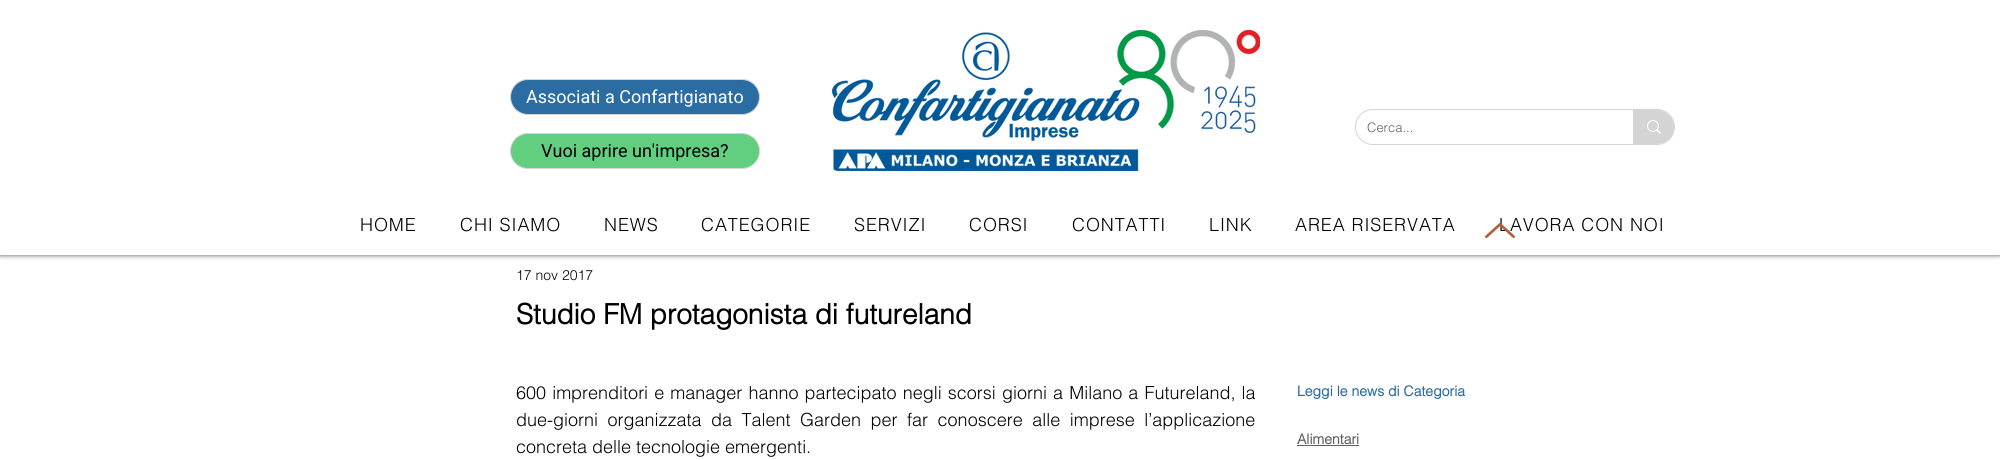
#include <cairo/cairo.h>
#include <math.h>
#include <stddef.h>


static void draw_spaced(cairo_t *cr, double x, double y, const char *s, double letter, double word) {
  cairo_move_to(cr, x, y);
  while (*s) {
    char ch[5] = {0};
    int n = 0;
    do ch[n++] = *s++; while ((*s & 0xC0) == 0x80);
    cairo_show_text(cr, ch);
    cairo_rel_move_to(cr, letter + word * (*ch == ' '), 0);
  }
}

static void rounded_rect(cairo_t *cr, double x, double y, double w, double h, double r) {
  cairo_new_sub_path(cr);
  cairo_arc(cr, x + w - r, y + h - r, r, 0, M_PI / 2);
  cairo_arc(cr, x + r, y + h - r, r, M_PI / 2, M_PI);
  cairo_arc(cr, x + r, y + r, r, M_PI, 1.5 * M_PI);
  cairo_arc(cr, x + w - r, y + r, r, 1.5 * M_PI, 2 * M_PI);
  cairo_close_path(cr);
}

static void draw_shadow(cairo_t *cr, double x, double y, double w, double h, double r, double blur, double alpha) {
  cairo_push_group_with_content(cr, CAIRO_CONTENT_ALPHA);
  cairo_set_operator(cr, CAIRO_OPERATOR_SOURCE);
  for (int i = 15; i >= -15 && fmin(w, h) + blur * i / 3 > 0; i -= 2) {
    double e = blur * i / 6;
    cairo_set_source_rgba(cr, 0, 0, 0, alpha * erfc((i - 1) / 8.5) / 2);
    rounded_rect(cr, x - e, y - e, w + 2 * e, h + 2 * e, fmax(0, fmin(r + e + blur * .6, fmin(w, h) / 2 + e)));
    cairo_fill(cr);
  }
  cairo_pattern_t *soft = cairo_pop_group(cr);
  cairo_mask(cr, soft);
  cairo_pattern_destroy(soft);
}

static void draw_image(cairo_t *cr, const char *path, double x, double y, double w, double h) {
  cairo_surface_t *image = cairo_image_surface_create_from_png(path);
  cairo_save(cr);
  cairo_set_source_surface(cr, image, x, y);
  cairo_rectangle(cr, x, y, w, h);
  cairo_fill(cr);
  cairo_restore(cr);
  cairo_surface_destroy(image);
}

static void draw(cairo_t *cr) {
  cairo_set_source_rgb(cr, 1, 1, 1);
  cairo_paint(cr);
  cairo_save(cr);
  cairo_rectangle(cr, 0, 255, 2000, 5);
  cairo_clip(cr);
  cairo_set_source_rgb(cr, 0, 0, 0);
  draw_shadow(cr, 0, 0, 2000, 255, 0, 2.5, 0.7);
  cairo_restore(cr);
  cairo_set_source_rgb(cr, 43 / 255.0, 108 / 255.0, 163 / 255.0);
  rounded_rect(cr, 510.5, 79.5, 249, 35, 17.5);
  cairo_fill_preserve(cr);
  cairo_set_source_rgb(cr, 212 / 255.0, 212 / 255.0, 212 / 255.0);
  cairo_set_line_width(cr, 1);
  cairo_stroke(cr);
  draw_image(cr, "images/1.png", 832, 30, 428, 141);
  rounded_rect(cr, 1355.5, 109.5, 319, 35, 17.5);
  cairo_stroke(cr);
  cairo_new_path(cr);
  cairo_move_to(cr, 1633, 110);
  cairo_line_to(cr, 1657, 110);
  cairo_curve_to(cr, 1666.5, 110, 1674, 117.5, 1674, 127);
  cairo_curve_to(cr, 1674, 136.5, 1666.5, 144, 1657, 144);
  cairo_line_to(cr, 1633, 144);
  cairo_close_path(cr);
  cairo_fill(cr);
  draw_image(cr, "images/2.png", 1647, 120, 14, 14);
  cairo_set_source_rgb(cr, 97 / 255.0, 207 / 255.0, 127 / 255.0);
  rounded_rect(cr, 510.5, 133.5, 249, 35, 17.5);
  cairo_fill_preserve(cr);
  cairo_set_source_rgb(cr, 212 / 255.0, 212 / 255.0, 212 / 255.0);
  cairo_stroke(cr);
  cairo_set_source_rgb(cr, 96 / 255.0, 96 / 255.0, 96 / 255.0);
  cairo_rectangle(cr, 1297, 445, 62, 1);
  cairo_fill(cr);
  cairo_select_font_face(cr, "Heebo", CAIRO_FONT_SLANT_NORMAL, CAIRO_FONT_WEIGHT_NORMAL);
  cairo_set_font_size(cr, 18);
  cairo_set_source_rgb(cr, 1, 1, 1);
  cairo_move_to(cr, 526, 103);
  cairo_show_text(cr, "Associati a Confartigianato");
  cairo_select_font_face(cr, "helvetica Light", CAIRO_FONT_SLANT_NORMAL, CAIRO_FONT_WEIGHT_NORMAL);
  cairo_set_font_size(cr, 13);
  cairo_set_source_rgb(cr, 96 / 255.0, 96 / 255.0, 96 / 255.0);
  cairo_move_to(cr, 1367, 132);
  cairo_show_text(cr, "Cerca...");
  cairo_select_font_face(cr, "Heebo", CAIRO_FONT_SLANT_NORMAL, CAIRO_FONT_WEIGHT_NORMAL);
  cairo_set_font_size(cr, 18);
  cairo_set_source_rgb(cr, 0, 0, 0);
  cairo_move_to(cr, 541, 157);
  cairo_show_text(cr, "Vuoi aprire un'impresa?");
  cairo_select_font_face(cr, "helvetica Light", CAIRO_FONT_SLANT_NORMAL, CAIRO_FONT_WEIGHT_NORMAL);
  draw_spaced(cr, 360, 231, "HOME", 0.9, 0);
  draw_spaced(cr, 460, 231, "CHI SIAMO", 0.9, 0);
  draw_spaced(cr, 604, 231, "NEWS", 0.9, 0);
  draw_spaced(cr, 701, 231, "CATEGORIE", 0.9, 0);
  draw_spaced(cr, 854, 231, "SERVIZI", 0.9, 0);
  draw_spaced(cr, 969, 231, "CORSI", 0.9, 0);
  draw_spaced(cr, 1072, 231, "CONTATTI", 0.9, 0);
  draw_spaced(cr, 1209, 231, "LINK", 0.9, 0);
  draw_spaced(cr, 1295, 231, "AREA RISERVATA", 0.9, 0);
  draw_spaced(cr, 1499, 231, "LAVORA CON NOI", 0.9, 0);
  draw_image(cr, "images/3.png", 1485, 223, 30, 15);
  cairo_set_font_size(cr, 14);
  cairo_move_to(cr, 516, 280);
  cairo_show_text(cr, "17 nov 2017");
  cairo_select_font_face(cr, "helvetica", CAIRO_FONT_SLANT_NORMAL, CAIRO_FONT_WEIGHT_BOLD);
  cairo_set_font_size(cr, 28);
  cairo_move_to(cr, 516, 324);
  cairo_show_text(cr, "Studio FM protagonista di futureland");
  cairo_select_font_face(cr, "helvetica Light", CAIRO_FONT_SLANT_NORMAL, CAIRO_FONT_WEIGHT_NORMAL);
  cairo_set_font_size(cr, 18);
  draw_spaced(cr, 516, 399, "600 imprenditori e manager hanno partecipato negli scorsi giorni a Milano a Futureland, la", 0, 1.1);
  draw_spaced(cr, 516, 426, "due-giorni organizzata da Talent Garden per far conoscere alle imprese l’applicazione", 0, 4.5);
  cairo_move_to(cr, 516, 453);
  cairo_show_text(cr, "concreta delle tecnologie emergenti.");
  cairo_select_font_face(cr, "helvetica", CAIRO_FONT_SLANT_NORMAL, CAIRO_FONT_WEIGHT_BOLD);
  cairo_set_font_size(cr, 14);
  cairo_set_source_rgb(cr, 43 / 255.0, 108 / 255.0, 163 / 255.0);
  cairo_move_to(cr, 1297, 396);
  cairo_show_text(cr, "Leggi le news di Categoria");
  cairo_set_source_rgb(cr, 96 / 255.0, 96 / 255.0, 96 / 255.0);
  cairo_move_to(cr, 1297, 444);
  cairo_show_text(cr, "Alimentari");
}

int main(void) {
  cairo_surface_t *surface = cairo_image_surface_create(CAIRO_FORMAT_RGB24, 2000, 460);
  cairo_t *cr = cairo_create(surface);
  cairo_font_options_t *options = cairo_font_options_create();
  cairo_font_options_set_hint_metrics(options, CAIRO_HINT_METRICS_OFF);
  cairo_font_options_set_hint_style(options, CAIRO_HINT_STYLE_NONE);
  cairo_set_font_options(cr, options);
  cairo_set_miter_limit(cr, 4);
  draw(cr);
  cairo_surface_write_to_png(surface, "out.png");
  cairo_font_options_destroy(options);
  cairo_destroy(cr);
  cairo_surface_destroy(surface);
  return 0;
}
